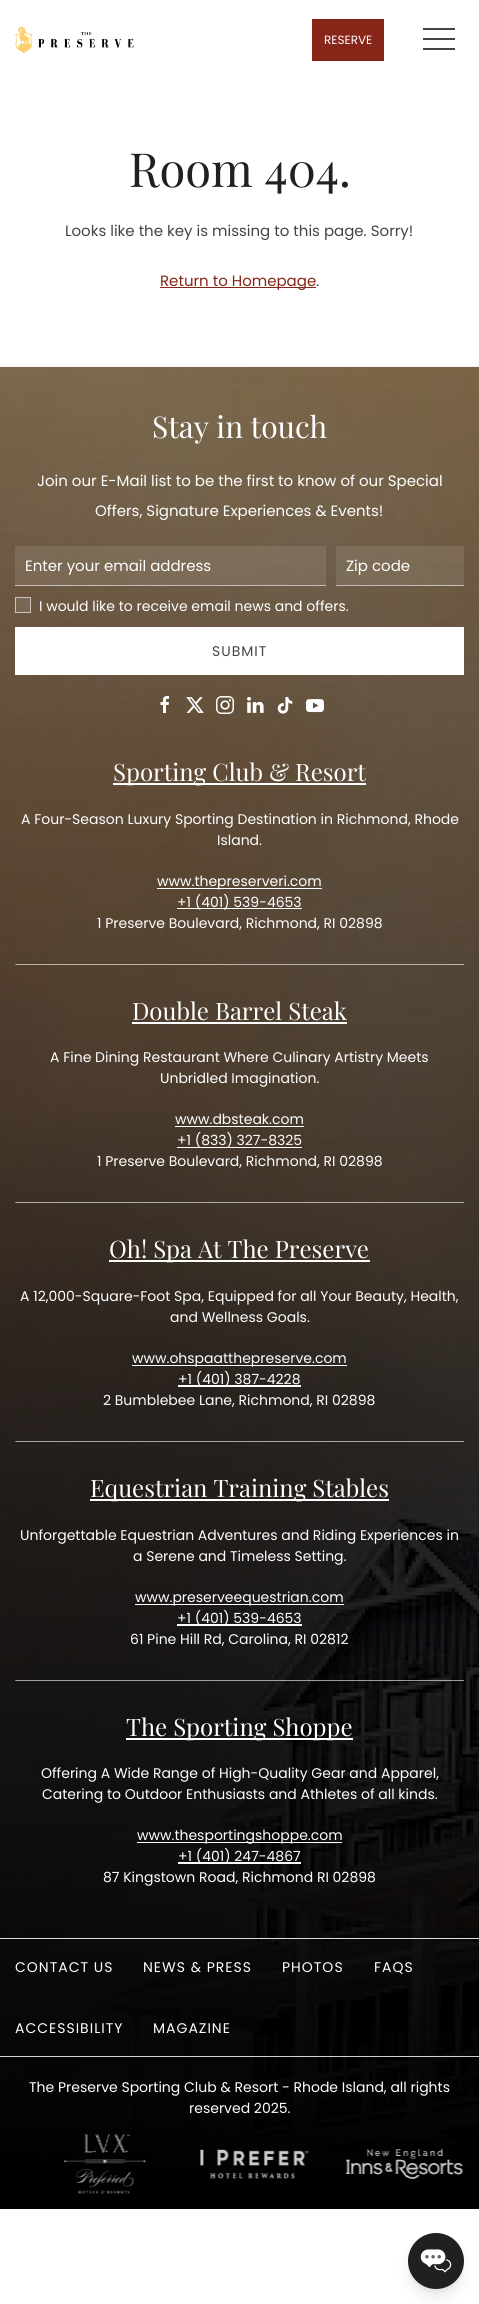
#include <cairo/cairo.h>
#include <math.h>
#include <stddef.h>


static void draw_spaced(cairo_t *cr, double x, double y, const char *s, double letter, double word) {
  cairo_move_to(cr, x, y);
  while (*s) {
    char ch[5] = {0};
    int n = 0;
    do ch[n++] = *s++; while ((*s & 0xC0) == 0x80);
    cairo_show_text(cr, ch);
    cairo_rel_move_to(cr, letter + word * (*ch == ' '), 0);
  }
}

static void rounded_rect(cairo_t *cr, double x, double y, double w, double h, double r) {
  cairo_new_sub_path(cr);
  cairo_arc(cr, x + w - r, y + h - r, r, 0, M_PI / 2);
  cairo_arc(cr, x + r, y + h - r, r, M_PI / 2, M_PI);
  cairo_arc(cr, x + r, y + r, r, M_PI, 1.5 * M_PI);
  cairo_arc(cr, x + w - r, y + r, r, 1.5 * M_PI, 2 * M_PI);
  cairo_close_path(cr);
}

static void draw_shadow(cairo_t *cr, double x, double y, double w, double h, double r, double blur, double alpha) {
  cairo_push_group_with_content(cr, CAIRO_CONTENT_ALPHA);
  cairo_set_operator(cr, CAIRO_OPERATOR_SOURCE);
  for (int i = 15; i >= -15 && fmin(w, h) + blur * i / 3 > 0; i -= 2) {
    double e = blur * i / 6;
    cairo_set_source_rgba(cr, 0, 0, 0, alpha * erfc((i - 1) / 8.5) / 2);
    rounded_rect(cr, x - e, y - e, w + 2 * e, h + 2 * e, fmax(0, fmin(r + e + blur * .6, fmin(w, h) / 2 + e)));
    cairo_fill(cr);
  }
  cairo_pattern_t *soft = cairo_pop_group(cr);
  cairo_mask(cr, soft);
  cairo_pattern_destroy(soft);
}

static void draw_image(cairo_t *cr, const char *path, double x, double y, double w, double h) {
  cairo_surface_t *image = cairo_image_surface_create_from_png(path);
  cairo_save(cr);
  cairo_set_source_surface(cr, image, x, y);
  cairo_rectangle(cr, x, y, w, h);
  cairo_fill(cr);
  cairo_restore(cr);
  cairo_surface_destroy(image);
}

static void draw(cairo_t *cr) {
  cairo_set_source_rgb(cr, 1, 1, 1);
  cairo_paint(cr);
  draw_image(cr, "images/1.png", 15, 26, 119, 28);
  cairo_set_source_rgb(cr, 135 / 255.0, 37 / 255.0, 24 / 255.0);
  cairo_rectangle(cr, 312, 19, 72, 42);
  cairo_fill(cr);
  cairo_set_source_rgb(cr, 68 / 255.0, 68 / 255.0, 68 / 255.0);
  cairo_rectangle(cr, 423, 28, 32, 2);
  cairo_fill(cr);
  cairo_rectangle(cr, 423, 38, 32, 2);
  cairo_fill(cr);
  cairo_rectangle(cr, 423, 48, 32, 2);
  cairo_fill(cr);
  cairo_set_source_rgb(cr, 135 / 255.0, 37 / 255.0, 24 / 255.0);
  cairo_rectangle(cr, 160, 287, 156, 1);
  cairo_fill(cr);
  draw_image(cr, "images/2.png", 0, 367, 479, 1842);
  cairo_set_source_rgb(cr, 246 / 255.0, 246 / 255.0, 246 / 255.0);
  cairo_rectangle(cr, 0, 366, 479, 1);
  cairo_fill(cr);
  cairo_set_source_rgba(cr, 1, 1, 1, 0.1);
  cairo_rectangle(cr, 15, 546, 311, 39);
  cairo_fill(cr);
  cairo_set_source_rgba(cr, 1, 1, 1, 0.6);
  cairo_rectangle(cr, 15, 585, 311, 1);
  cairo_fill(cr);
  cairo_set_source_rgba(cr, 1, 1, 1, 0.1);
  cairo_rectangle(cr, 336, 546, 128, 39);
  cairo_fill(cr);
  cairo_set_source_rgba(cr, 1, 1, 1, 0.6);
  cairo_rectangle(cr, 336, 585, 128, 1);
  cairo_fill(cr);
  cairo_set_source_rgba(cr, 1, 1, 1, 0.1);
  cairo_rectangle(cr, 15, 597, 16, 16);
  cairo_fill(cr);
  cairo_rectangle(cr, 15.5, 597.5, 15, 15);
  cairo_set_source_rgba(cr, 1, 1, 1, 0.6);
  cairo_set_line_width(cr, 1);
  cairo_stroke(cr);
  cairo_set_source_rgb(cr, 1, 1, 1);
  cairo_rectangle(cr, 15, 627, 449, 48);
  cairo_fill(cr);
  draw_image(cr, "images/3.png", 160, 696, 9, 17);
  draw_image(cr, "images/4.png", 186, 697, 18, 16);
  draw_image(cr, "images/5.png", 216, 696, 18, 18);
  draw_image(cr, "images/6.png", 247, 697, 17, 16);
  draw_image(cr, "images/7.png", 277, 697, 16, 17);
  draw_image(cr, "images/8.png", 306, 699, 18, 14);
  cairo_rectangle(cr, 113, 783, 253, 2);
  cairo_fill(cr);
  cairo_rectangle(cr, 157, 888, 165, 1);
  cairo_fill(cr);
  cairo_rectangle(cr, 177, 908, 125, 1);
  cairo_fill(cr);
  cairo_set_source_rgba(cr, 1, 1, 1, 0.6);
  cairo_new_path(cr);
  cairo_move_to(cr, 15, 964);
  cairo_line_to(cr, 464, 964);
  cairo_line_to(cr, 464, 965);
  cairo_line_to(cr, 16, 965);
  cairo_close_path(cr);
  cairo_fill(cr);
  cairo_set_source_rgb(cr, 158 / 255.0, 152 / 255.0, 146 / 255.0);
  cairo_new_path(cr);
  cairo_move_to(cr, 15, 965);
  cairo_line_to(cr, 15, 964);
  cairo_line_to(cr, 16, 965);
  cairo_close_path(cr);
  cairo_fill(cr);
  cairo_set_source_rgb(cr, 1, 1, 1);
  cairo_rectangle(cr, 132, 1022, 215, 2);
  cairo_fill(cr);
  cairo_rectangle(cr, 175, 1126, 129, 1);
  cairo_fill(cr);
  cairo_rectangle(cr, 177, 1147, 125, 1);
  cairo_fill(cr);
  cairo_set_source_rgba(cr, 1, 1, 1, 0.6);
  cairo_new_path(cr);
  cairo_move_to(cr, 15, 1202);
  cairo_line_to(cr, 464, 1202);
  cairo_line_to(cr, 464, 1203);
  cairo_line_to(cr, 16, 1203);
  cairo_close_path(cr);
  cairo_fill(cr);
  cairo_set_source_rgb(cr, 150 / 255.0, 146 / 255.0, 143 / 255.0);
  cairo_new_path(cr);
  cairo_move_to(cr, 15, 1203);
  cairo_line_to(cr, 15, 1202);
  cairo_line_to(cr, 16, 1203);
  cairo_close_path(cr);
  cairo_fill(cr);
  cairo_set_source_rgb(cr, 1, 1, 1);
  cairo_rectangle(cr, 109, 1260, 261, 2);
  cairo_fill(cr);
  cairo_rectangle(cr, 132, 1365, 215, 1);
  cairo_fill(cr);
  cairo_rectangle(cr, 178, 1385, 123, 2);
  cairo_fill(cr);
  cairo_set_source_rgba(cr, 1, 1, 1, 0.6);
  cairo_new_path(cr);
  cairo_move_to(cr, 15, 1441);
  cairo_line_to(cr, 464, 1441);
  cairo_line_to(cr, 464, 1442);
  cairo_line_to(cr, 16, 1442);
  cairo_close_path(cr);
  cairo_fill(cr);
  cairo_set_source_rgb(cr, 143 / 255.0, 141 / 255.0, 139 / 255.0);
  cairo_new_path(cr);
  cairo_move_to(cr, 15, 1442);
  cairo_line_to(cr, 15, 1441);
  cairo_line_to(cr, 16, 1442);
  cairo_close_path(cr);
  cairo_fill(cr);
  cairo_set_source_rgb(cr, 1, 1, 1);
  cairo_rectangle(cr, 90, 1499, 299, 2);
  cairo_fill(cr);
  cairo_rectangle(cr, 135, 1604, 209, 1);
  cairo_fill(cr);
  cairo_rectangle(cr, 177, 1624, 125, 2);
  cairo_fill(cr);
  cairo_set_source_rgba(cr, 1, 1, 1, 0.6);
  cairo_new_path(cr);
  cairo_move_to(cr, 15, 1680);
  cairo_line_to(cr, 464, 1680);
  cairo_line_to(cr, 464, 1681);
  cairo_line_to(cr, 16, 1681);
  cairo_close_path(cr);
  cairo_fill(cr);
  cairo_set_source_rgb(cr, 137 / 255.0, 137 / 255.0, 136 / 255.0);
  cairo_new_path(cr);
  cairo_move_to(cr, 15, 1681);
  cairo_line_to(cr, 15, 1680);
  cairo_line_to(cr, 16, 1681);
  cairo_close_path(cr);
  cairo_fill(cr);
  cairo_set_source_rgb(cr, 1, 1, 1);
  cairo_rectangle(cr, 126, 1738, 227, 2);
  cairo_fill(cr);
  cairo_rectangle(cr, 137, 1842, 205, 1);
  cairo_fill(cr);
  cairo_rectangle(cr, 178, 1862, 123, 2);
  cairo_fill(cr);
  cairo_set_source_rgba(cr, 1, 1, 1, 0.86);
  cairo_rectangle(cr, 0, 1938, 479, 1);
  cairo_fill(cr);
  cairo_set_source_rgba(cr, 1, 1, 1, 0.82);
  cairo_rectangle(cr, 0, 2056, 479, 1);
  cairo_fill(cr);
  draw_image(cr, "images/9.png", 64, 2134, 82, 60);
  draw_image(cr, "images/10.png", 200, 2149, 109, 30);
  draw_image(cr, "images/11.png", 346, 2149, 117, 30);
  cairo_set_source_rgb(cr, 0, 0, 0);
  draw_shadow(cr, 412, 2241, 48, 48, 24, 3, 0.1);
  draw_shadow(cr, 411, 2246, 50, 50, 25, 7.5, 0.1);
  cairo_set_source_rgb(cr, 32 / 255.0, 32 / 255.0, 32 / 255.0);
  cairo_arc(cr, 436, 2261, 28, 0, 2 * M_PI);
  cairo_fill(cr);
  draw_image(cr, "images/12.png", 420, 2249, 32, 24);
  cairo_select_font_face(cr, "Poppins", CAIRO_FONT_SLANT_NORMAL, CAIRO_FONT_WEIGHT_NORMAL);
  cairo_set_font_size(cr, 12);
  cairo_set_source_rgb(cr, 1, 1, 1);
  cairo_move_to(cr, 324, 44);
  cairo_show_text(cr, "RESERVE");
  cairo_select_font_face(cr, "Playfair Display", CAIRO_FONT_SLANT_NORMAL, CAIRO_FONT_WEIGHT_NORMAL);
  cairo_set_font_size(cr, 47);
  cairo_set_source_rgb(cr, 32 / 255.0, 32 / 255.0, 32 / 255.0);
  cairo_move_to(cr, 129, 187);
  cairo_show_text(cr, "Room 404.");
  cairo_select_font_face(cr, "Poppins", CAIRO_FONT_SLANT_NORMAL, CAIRO_FONT_WEIGHT_NORMAL);
  cairo_set_font_size(cr, 15);
  cairo_set_source_rgb(cr, 68 / 255.0, 68 / 255.0, 68 / 255.0);
  cairo_move_to(cr, 65, 236);
  cairo_show_text(cr, "Looks like the key is missing to this page. Sorry!");
  cairo_set_source_rgb(cr, 135 / 255.0, 37 / 255.0, 24 / 255.0);
  cairo_move_to(cr, 160, 286);
  cairo_show_text(cr, "Return to Homepage");
  cairo_set_source_rgb(cr, 68 / 255.0, 68 / 255.0, 68 / 255.0);
  cairo_move_to(cr, 316, 286);
  cairo_show_text(cr, ".");
  cairo_select_font_face(cr, "Playfair Display", CAIRO_FONT_SLANT_NORMAL, CAIRO_FONT_WEIGHT_NORMAL);
  cairo_set_font_size(cr, 30);
  cairo_set_source_rgb(cr, 1, 1, 1);
  cairo_move_to(cr, 152, 438);
  cairo_show_text(cr, "Stay in touch");
  cairo_select_font_face(cr, "Poppins", CAIRO_FONT_SLANT_NORMAL, CAIRO_FONT_WEIGHT_NORMAL);
  cairo_set_font_size(cr, 15);
  cairo_move_to(cr, 37, 486);
  cairo_show_text(cr, "Join our E-Mail list to be the first to know of our Special");
  cairo_move_to(cr, 95, 516);
  cairo_show_text(cr, "Offers, Signature Experiences & Events!");
  cairo_move_to(cr, 25, 571);
  cairo_show_text(cr, "Enter your email address");
  cairo_move_to(cr, 346, 571);
  cairo_show_text(cr, "Zip code");
  cairo_set_font_size(cr, 14);
  cairo_move_to(cr, 39, 611);
  cairo_show_text(cr, "I would like to receive email news and offers.");
  cairo_set_source_rgb(cr, 68 / 255.0, 68 / 255.0, 68 / 255.0);
  draw_spaced(cr, 212, 656, "SUBMIT", 1, 0);
  cairo_select_font_face(cr, "Playfair Display", CAIRO_FONT_SLANT_NORMAL, CAIRO_FONT_WEIGHT_NORMAL);
  cairo_set_font_size(cr, 24);
  cairo_set_source_rgb(cr, 1, 1, 1);
  cairo_move_to(cr, 113, 781);
  cairo_show_text(cr, "Sporting Club & Resort");
  cairo_select_font_face(cr, "Poppins", CAIRO_FONT_SLANT_NORMAL, CAIRO_FONT_WEIGHT_NORMAL);
  cairo_set_font_size(cr, 14);
  cairo_move_to(cr, 21, 824);
  cairo_show_text(cr, "A Four-Season Luxury Sporting Destination in Richmond, Rhode");
  cairo_move_to(cr, 217, 845);
  cairo_show_text(cr, "Island.");
  cairo_move_to(cr, 157, 886);
  cairo_show_text(cr, "www.thepreserveri.com");
  cairo_move_to(cr, 177, 907);
  cairo_show_text(cr, "+1 (401) 539-4653");
  cairo_move_to(cr, 97, 928);
  cairo_show_text(cr, "1 Preserve Boulevard, Richmond, RI 02898");
  cairo_select_font_face(cr, "Playfair Display", CAIRO_FONT_SLANT_NORMAL, CAIRO_FONT_WEIGHT_NORMAL);
  cairo_set_font_size(cr, 24);
  cairo_move_to(cr, 132, 1020);
  cairo_show_text(cr, "Double Barrel Steak");
  cairo_select_font_face(cr, "Poppins", CAIRO_FONT_SLANT_NORMAL, CAIRO_FONT_WEIGHT_NORMAL);
  cairo_set_font_size(cr, 14);
  cairo_move_to(cr, 50, 1062);
  cairo_show_text(cr, "A Fine Dining Restaurant Where Culinary Artistry Meets");
  cairo_move_to(cr, 160, 1083);
  cairo_show_text(cr, "Unbridled Imagination.");
  cairo_move_to(cr, 175, 1124);
  cairo_show_text(cr, "www.dbsteak.com");
  cairo_move_to(cr, 177, 1145);
  cairo_show_text(cr, "+1 (833) 327-8325");
  cairo_move_to(cr, 97, 1166);
  cairo_show_text(cr, "1 Preserve Boulevard, Richmond, RI 02898");
  cairo_select_font_face(cr, "Playfair Display", CAIRO_FONT_SLANT_NORMAL, CAIRO_FONT_WEIGHT_NORMAL);
  cairo_set_font_size(cr, 24);
  cairo_move_to(cr, 109, 1258);
  cairo_show_text(cr, "Oh! Spa At The Preserve");
  cairo_select_font_face(cr, "Poppins", CAIRO_FONT_SLANT_NORMAL, CAIRO_FONT_WEIGHT_NORMAL);
  cairo_set_font_size(cr, 14);
  cairo_move_to(cr, 20, 1301);
  cairo_show_text(cr, "A 12,000-Square-Foot Spa, Equipped for all Your Beauty, Health,");
  cairo_move_to(cr, 170, 1322);
  cairo_show_text(cr, "and Wellness Goals.");
  cairo_move_to(cr, 132, 1363);
  cairo_show_text(cr, "www.ohspaatthepreserve.com");
  cairo_move_to(cr, 178, 1384);
  cairo_show_text(cr, "+1 (401) 387-4228");
  cairo_move_to(cr, 103, 1405);
  cairo_show_text(cr, "2 Bumblebee Lane, Richmond, RI 02898");
  cairo_select_font_face(cr, "Playfair Display", CAIRO_FONT_SLANT_NORMAL, CAIRO_FONT_WEIGHT_NORMAL);
  cairo_set_font_size(cr, 24);
  cairo_move_to(cr, 90, 1497);
  cairo_show_text(cr, "Equestrian Training Stables");
  cairo_select_font_face(cr, "Poppins", CAIRO_FONT_SLANT_NORMAL, CAIRO_FONT_WEIGHT_NORMAL);
  cairo_set_font_size(cr, 14);
  cairo_move_to(cr, 20, 1540);
  cairo_show_text(cr, "Unforgettable Equestrian Adventures and Riding Experiences in");
  cairo_move_to(cr, 133, 1561);
  cairo_show_text(cr, "a Serene and Timeless Setting.");
  cairo_move_to(cr, 135, 1602);
  cairo_show_text(cr, "www.preserveequestrian.com");
  cairo_move_to(cr, 177, 1623);
  cairo_show_text(cr, "+1 (401) 539-4653");
  cairo_move_to(cr, 130, 1644);
  cairo_show_text(cr, "61 Pine Hill Rd, Carolina, RI 02812");
  cairo_select_font_face(cr, "Playfair Display", CAIRO_FONT_SLANT_NORMAL, CAIRO_FONT_WEIGHT_NORMAL);
  cairo_set_font_size(cr, 24);
  cairo_move_to(cr, 126, 1736);
  cairo_show_text(cr, "The Sporting Shoppe");
  cairo_select_font_face(cr, "Poppins", CAIRO_FONT_SLANT_NORMAL, CAIRO_FONT_WEIGHT_NORMAL);
  cairo_set_font_size(cr, 14);
  cairo_move_to(cr, 41, 1778);
  cairo_show_text(cr, "Offering A Wide Range of High-Quality Gear and Apparel,");
  cairo_move_to(cr, 42, 1799);
  cairo_show_text(cr, "Catering to Outdoor Enthusiasts and Athletes of all kinds.");
  cairo_move_to(cr, 137, 1840);
  cairo_show_text(cr, "www.thesportingshoppe.com");
  cairo_move_to(cr, 178, 1861);
  cairo_show_text(cr, "+1 (401) 247-4867");
  cairo_move_to(cr, 103, 1882);
  cairo_show_text(cr, "87 Kingstown Road, Richmond RI 02898");
  draw_spaced(cr, 15, 1972, "CONTACT US", 1, 0);
  draw_spaced(cr, 143, 1972, "NEWS & PRESS", 1, 0);
  draw_spaced(cr, 282, 1972, "PHOTOS", 1, 0);
  draw_spaced(cr, 374, 1972, "FAQS", 1, 0);
  draw_spaced(cr, 15, 2033, "ACCESSIBILITY", 1, 0);
  draw_spaced(cr, 153, 2033, "MAGAZINE", 1, 0);
  cairo_move_to(cr, 29, 2092);
  cairo_show_text(cr, "The Preserve Sporting Club & Resort - Rhode Island, all rights");
  cairo_move_to(cr, 189, 2113);
  cairo_show_text(cr, "reserved 2025.");
}

int main(void) {
  cairo_surface_t *surface = cairo_image_surface_create(CAIRO_FORMAT_RGB24, 479, 2304);
  cairo_t *cr = cairo_create(surface);
  cairo_font_options_t *options = cairo_font_options_create();
  cairo_font_options_set_hint_metrics(options, CAIRO_HINT_METRICS_OFF);
  cairo_font_options_set_hint_style(options, CAIRO_HINT_STYLE_NONE);
  cairo_set_font_options(cr, options);
  cairo_set_miter_limit(cr, 4);
  draw(cr);
  cairo_surface_write_to_png(surface, "out.png");
  cairo_font_options_destroy(options);
  cairo_destroy(cr);
  cairo_surface_destroy(surface);
  return 0;
}
